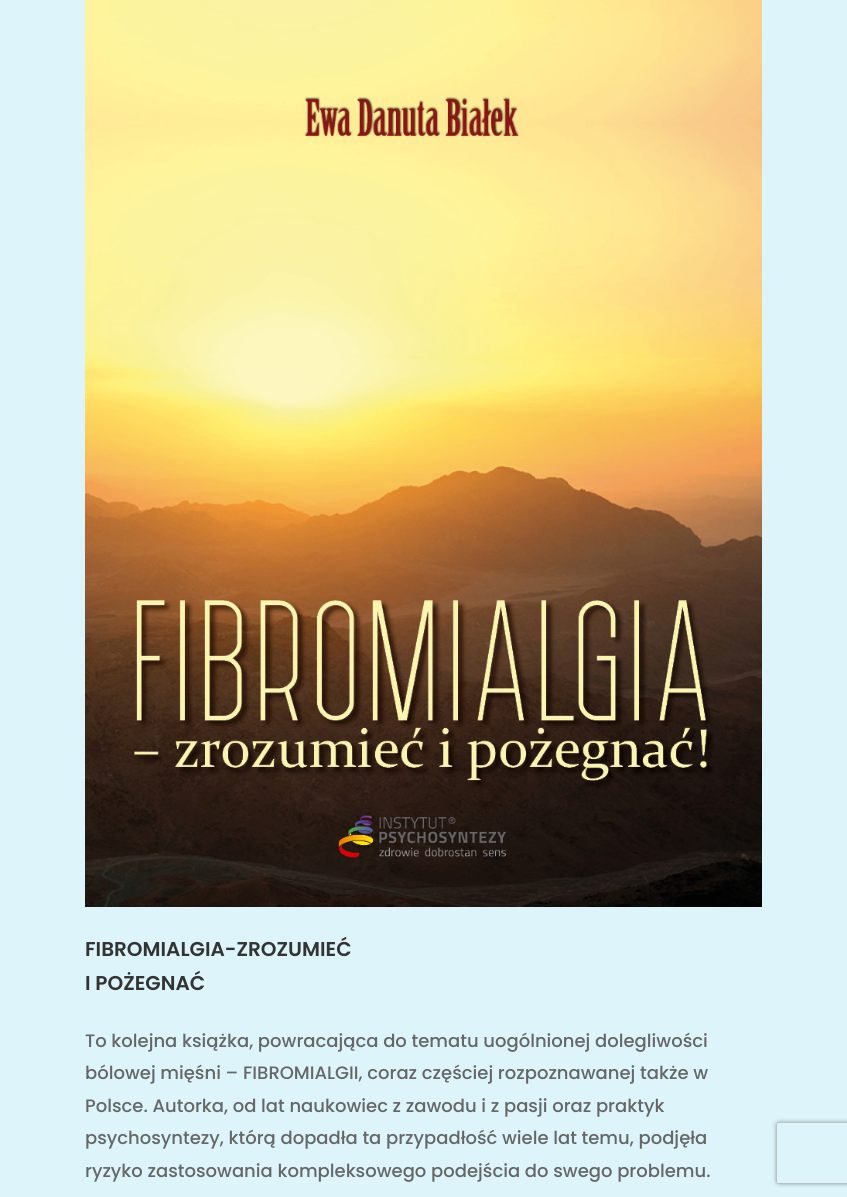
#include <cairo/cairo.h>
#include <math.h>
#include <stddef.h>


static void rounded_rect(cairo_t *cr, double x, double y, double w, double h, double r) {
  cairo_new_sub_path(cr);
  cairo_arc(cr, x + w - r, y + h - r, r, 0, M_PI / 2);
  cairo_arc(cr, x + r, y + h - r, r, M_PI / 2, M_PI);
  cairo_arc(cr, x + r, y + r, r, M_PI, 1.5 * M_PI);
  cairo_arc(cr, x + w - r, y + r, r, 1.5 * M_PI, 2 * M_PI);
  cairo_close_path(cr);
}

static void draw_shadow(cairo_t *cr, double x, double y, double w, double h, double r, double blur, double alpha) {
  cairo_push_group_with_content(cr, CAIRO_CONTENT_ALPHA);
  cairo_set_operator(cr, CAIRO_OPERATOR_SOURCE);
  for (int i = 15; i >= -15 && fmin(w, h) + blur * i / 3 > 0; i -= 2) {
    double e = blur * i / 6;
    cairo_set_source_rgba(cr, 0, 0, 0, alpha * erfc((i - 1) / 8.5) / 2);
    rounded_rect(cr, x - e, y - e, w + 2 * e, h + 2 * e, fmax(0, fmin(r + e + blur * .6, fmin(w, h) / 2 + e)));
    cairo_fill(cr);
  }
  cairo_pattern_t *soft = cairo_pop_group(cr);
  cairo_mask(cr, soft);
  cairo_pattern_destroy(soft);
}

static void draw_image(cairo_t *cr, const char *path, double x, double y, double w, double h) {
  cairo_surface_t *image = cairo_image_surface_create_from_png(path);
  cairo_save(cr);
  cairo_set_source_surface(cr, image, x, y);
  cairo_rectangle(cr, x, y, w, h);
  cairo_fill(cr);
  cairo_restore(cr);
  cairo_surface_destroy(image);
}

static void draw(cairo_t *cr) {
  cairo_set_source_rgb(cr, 220 / 255.0, 244 / 255.0, 250 / 255.0);
  cairo_paint(cr);
  draw_image(cr, "images/1.png", 85, 0, 677, 907);
  cairo_save(cr);
  cairo_set_fill_rule(cr, CAIRO_FILL_RULE_EVEN_ODD);
  cairo_new_path(cr);
  cairo_move_to(cr, 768, 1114);
  cairo_line_to(cr, 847, 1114);
  cairo_line_to(cr, 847, 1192);
  cairo_line_to(cr, 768, 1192);
  cairo_close_path(cr);
  cairo_move_to(cr, 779, 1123);
  cairo_line_to(cr, 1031, 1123);
  cairo_curve_to(cr, 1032, 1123, 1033, 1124, 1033, 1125);
  cairo_line_to(cr, 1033, 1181);
  cairo_curve_to(cr, 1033, 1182, 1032, 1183, 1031, 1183);
  cairo_line_to(cr, 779, 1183);
  cairo_curve_to(cr, 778, 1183, 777, 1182, 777, 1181);
  cairo_line_to(cr, 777, 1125);
  cairo_curve_to(cr, 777, 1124, 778, 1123, 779, 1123);
  cairo_close_path(cr);
  cairo_clip(cr);
  cairo_set_source_rgb(cr, 128 / 255.0, 128 / 255.0, 128 / 255.0);
  draw_shadow(cr, 777, 1123, 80, 60, 2, 2.5, 1);
  cairo_restore(cr);
  cairo_select_font_face(cr, "Poppins SemiBold", CAIRO_FONT_SLANT_NORMAL, CAIRO_FONT_WEIGHT_NORMAL);
  cairo_set_font_size(cr, 20);
  cairo_set_source_rgb(cr, 51 / 255.0, 51 / 255.0, 51 / 255.0);
  cairo_move_to(cr, 85, 956);
  cairo_show_text(cr, "FIBROMIALGIA-ZROZUMIEĆ");
  cairo_move_to(cr, 85, 990);
  cairo_show_text(cr, "I POŻEGNAĆ");
  cairo_select_font_face(cr, "Poppins Medium", CAIRO_FONT_SLANT_NORMAL, CAIRO_FONT_WEIGHT_NORMAL);
  cairo_set_font_size(cr, 18);
  cairo_set_source_rgb(cr, 102 / 255.0, 102 / 255.0, 102 / 255.0);
  cairo_move_to(cr, 85, 1047);
  cairo_show_text(cr, "To kolejna książka, powracająca do tematu uogólnionej dolegliwości");
  cairo_move_to(cr, 85, 1079);
  cairo_show_text(cr, "bólowej mięśni – FIBROMIALGII, coraz częściej rozpoznawanej także w");
  cairo_move_to(cr, 85, 1112);
  cairo_show_text(cr, "Polsce. Autorka, od lat naukowiec z zawodu i z pasji oraz praktyk");
  cairo_move_to(cr, 85, 1144);
  cairo_show_text(cr, "psychosyntezy, którą dopadła ta przypadłość wiele lat temu, podjęła");
  cairo_move_to(cr, 85, 1177);
  cairo_show_text(cr, "ryzyko zastosowania kompleksowego podejścia do swego problemu.");
}

int main(void) {
  cairo_surface_t *surface = cairo_image_surface_create(CAIRO_FORMAT_RGB24, 847, 1197);
  cairo_t *cr = cairo_create(surface);
  cairo_font_options_t *options = cairo_font_options_create();
  cairo_font_options_set_hint_metrics(options, CAIRO_HINT_METRICS_OFF);
  cairo_font_options_set_hint_style(options, CAIRO_HINT_STYLE_NONE);
  cairo_set_font_options(cr, options);
  cairo_set_miter_limit(cr, 4);
  draw(cr);
  cairo_surface_write_to_png(surface, "out.png");
  cairo_font_options_destroy(options);
  cairo_destroy(cr);
  cairo_surface_destroy(surface);
  return 0;
}
